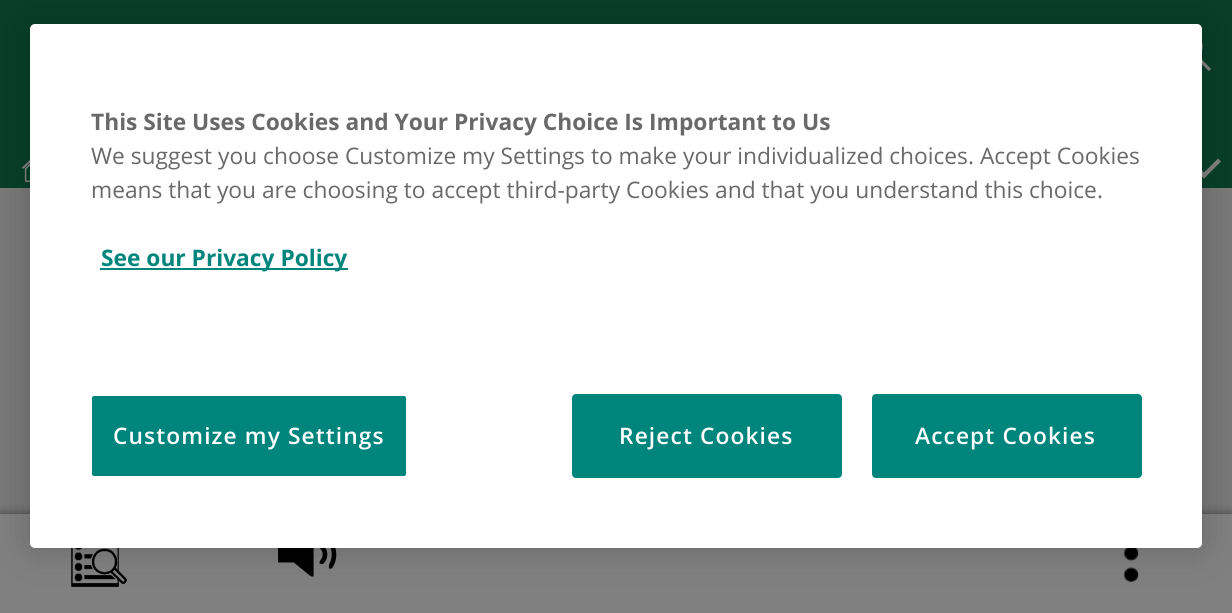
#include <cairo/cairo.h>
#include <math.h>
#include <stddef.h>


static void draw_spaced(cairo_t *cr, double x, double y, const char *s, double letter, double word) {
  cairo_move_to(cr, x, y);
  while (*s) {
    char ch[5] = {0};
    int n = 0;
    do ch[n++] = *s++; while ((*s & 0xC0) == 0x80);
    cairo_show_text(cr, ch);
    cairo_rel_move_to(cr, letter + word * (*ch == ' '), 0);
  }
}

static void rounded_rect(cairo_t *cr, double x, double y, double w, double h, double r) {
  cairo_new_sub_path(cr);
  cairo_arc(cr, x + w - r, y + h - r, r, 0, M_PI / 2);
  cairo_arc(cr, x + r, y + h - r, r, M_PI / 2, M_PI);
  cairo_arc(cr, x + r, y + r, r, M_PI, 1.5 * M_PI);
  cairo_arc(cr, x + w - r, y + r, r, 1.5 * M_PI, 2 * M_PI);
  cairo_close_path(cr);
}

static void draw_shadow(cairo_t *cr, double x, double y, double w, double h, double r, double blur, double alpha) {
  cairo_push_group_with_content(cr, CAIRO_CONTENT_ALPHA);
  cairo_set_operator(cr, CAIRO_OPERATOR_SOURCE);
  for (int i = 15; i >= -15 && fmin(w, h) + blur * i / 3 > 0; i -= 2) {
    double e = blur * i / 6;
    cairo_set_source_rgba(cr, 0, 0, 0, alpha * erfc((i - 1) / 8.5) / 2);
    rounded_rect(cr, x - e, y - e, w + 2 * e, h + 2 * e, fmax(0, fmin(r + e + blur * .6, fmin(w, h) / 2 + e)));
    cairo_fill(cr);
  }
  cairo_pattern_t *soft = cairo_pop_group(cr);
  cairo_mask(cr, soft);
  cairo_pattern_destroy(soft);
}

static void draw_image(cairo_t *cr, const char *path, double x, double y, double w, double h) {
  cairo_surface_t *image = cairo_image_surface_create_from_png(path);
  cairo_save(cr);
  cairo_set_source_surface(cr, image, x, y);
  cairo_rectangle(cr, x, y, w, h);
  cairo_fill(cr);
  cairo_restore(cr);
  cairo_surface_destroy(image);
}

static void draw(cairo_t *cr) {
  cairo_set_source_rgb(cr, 121 / 255.0, 121 / 255.0, 121 / 255.0);
  cairo_paint(cr);
  cairo_set_source_rgb(cr, 8 / 255.0, 62 / 255.0, 42 / 255.0);
  cairo_rectangle(cr, 0, 0, 1232, 188);
  cairo_fill(cr);
  cairo_arc(cr, 1186.5, 46.5, 14.5, 0, 2 * M_PI);
  cairo_set_source_rgb(cr, 128 / 255.0, 128 / 255.0, 128 / 255.0);
  cairo_set_line_width(cr, 3.2);
  cairo_stroke(cr);
  cairo_new_path(cr);
  cairo_move_to(cr, 1210, 70);
  cairo_line_to(cr, 1198, 58);
  cairo_stroke(cr);
  draw_image(cr, "images/1.png", 21, 160, 9, 22);
  cairo_new_path(cr);
  cairo_move_to(cr, 1218, 158.5);
  cairo_line_to(cr, 1221, 161.5);
  cairo_line_to(cr, 1204, 178.5);
  cairo_line_to(cr, 1201, 175.5);
  cairo_close_path(cr);
  cairo_fill(cr);
  cairo_new_path(cr);
  cairo_move_to(cr, 1190, 158.5);
  cairo_line_to(cr, 1207, 175.5);
  cairo_line_to(cr, 1204, 178.5);
  cairo_line_to(cr, 1187, 161.5);
  cairo_close_path(cr);
  cairo_fill(cr);
  cairo_set_source_rgb(cr, 0, 0, 0);
  draw_shadow(cr, 0, 514, 1232, 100, 0, 5, 0.5);
  cairo_set_source_rgb(cr, 128 / 255.0, 128 / 255.0, 128 / 255.0);
  cairo_rectangle(cr, 0, 514, 1232, 99);
  cairo_fill(cr);
  draw_image(cr, "images/2.png", 71, 548, 56, 39);
  draw_image(cr, "images/3.png", 277, 548, 60, 29);
  draw_image(cr, "images/4.png", 1123, 548, 16, 35);
  cairo_set_source_rgb(cr, 0, 0, 0);
  draw_shadow(cr, 30, 24, 1172, 524, 5, 18, 0.2);
  cairo_set_source_rgb(cr, 1, 1, 1);
  rounded_rect(cr, 30, 24, 1172, 524, 5);
  cairo_fill(cr);
  cairo_set_source_rgb(cr, 0, 133 / 255.0, 124 / 255.0);
  cairo_rectangle(cr, 100, 268, 248, 2);
  cairo_fill(cr);
  rounded_rect(cr, 91, 395, 316, 82, 3);
  cairo_fill_preserve(cr);
  cairo_set_source_rgb(cr, 1, 1, 1);
  cairo_set_line_width(cr, 2);
  cairo_stroke(cr);
  cairo_set_source_rgb(cr, 0, 133 / 255.0, 124 / 255.0);
  rounded_rect(cr, 573, 395, 268, 82, 3);
  cairo_fill_preserve(cr);
  cairo_stroke(cr);
  rounded_rect(cr, 873, 395, 268, 82, 3);
  cairo_fill_preserve(cr);
  cairo_stroke(cr);
  cairo_select_font_face(cr, "Open Sans", CAIRO_FONT_SLANT_NORMAL, CAIRO_FONT_WEIGHT_BOLD);
  cairo_set_font_size(cr, 22.75);
  cairo_set_source_rgb(cr, 105 / 255.0, 105 / 255.0, 105 / 255.0);
  cairo_move_to(cr, 91, 130);
  cairo_show_text(cr, "This Site Uses Cookies and Your Privacy Choice Is Important to Us");
  cairo_select_font_face(cr, "Open Sans", CAIRO_FONT_SLANT_NORMAL, CAIRO_FONT_WEIGHT_NORMAL);
  cairo_move_to(cr, 91, 164);
  cairo_show_text(cr, "We suggest you choose Customize my Settings to make your individualized choices. Accept Cookies");
  cairo_move_to(cr, 91, 198);
  cairo_show_text(cr, "means that you are choosing to accept third-party Cookies and that you understand this choice.");
  cairo_select_font_face(cr, "Open Sans", CAIRO_FONT_SLANT_NORMAL, CAIRO_FONT_WEIGHT_BOLD);
  cairo_set_source_rgb(cr, 0, 133 / 255.0, 124 / 255.0);
  cairo_move_to(cr, 101, 266);
  cairo_show_text(cr, "See our Privacy Policy");
  cairo_select_font_face(cr, "Open Sans SemiBold", CAIRO_FONT_SLANT_NORMAL, CAIRO_FONT_WEIGHT_NORMAL);
  cairo_set_source_rgb(cr, 1, 1, 1);
  draw_spaced(cr, 113, 444, "Customize my Settings", 1.1, 0);
  draw_spaced(cr, 619, 444, "Reject Cookies", 1.1, 0);
  draw_spaced(cr, 915, 444, "Accept Cookies", 1.1, 0);
}

int main(void) {
  cairo_surface_t *surface = cairo_image_surface_create(CAIRO_FORMAT_RGB24, 1232, 613);
  cairo_t *cr = cairo_create(surface);
  cairo_font_options_t *options = cairo_font_options_create();
  cairo_font_options_set_hint_metrics(options, CAIRO_HINT_METRICS_OFF);
  cairo_font_options_set_hint_style(options, CAIRO_HINT_STYLE_NONE);
  cairo_set_font_options(cr, options);
  cairo_set_miter_limit(cr, 4);
  draw(cr);
  cairo_surface_write_to_png(surface, "out.png");
  cairo_font_options_destroy(options);
  cairo_destroy(cr);
  cairo_surface_destroy(surface);
  return 0;
}
